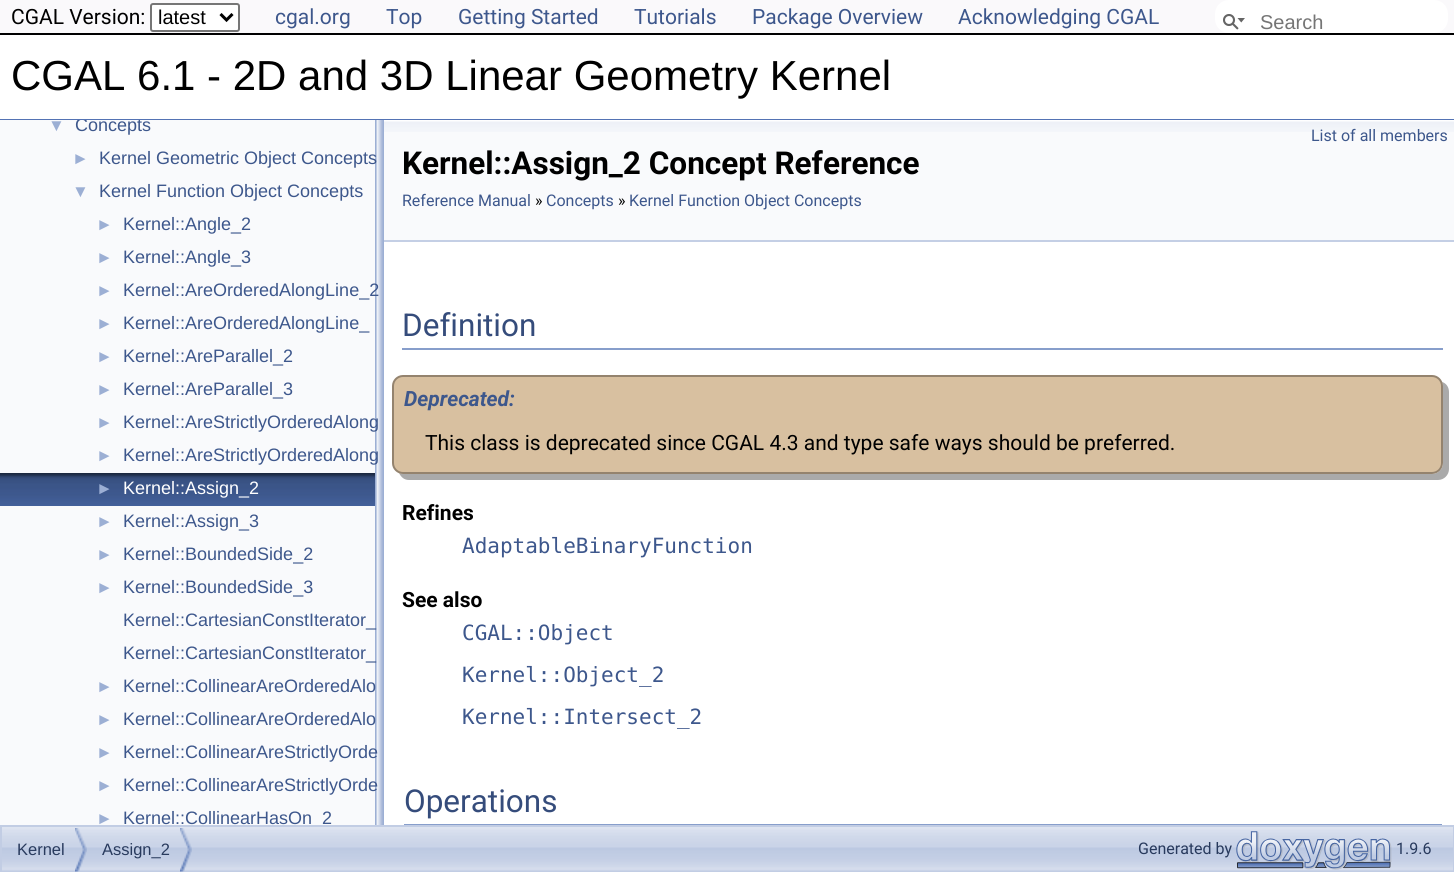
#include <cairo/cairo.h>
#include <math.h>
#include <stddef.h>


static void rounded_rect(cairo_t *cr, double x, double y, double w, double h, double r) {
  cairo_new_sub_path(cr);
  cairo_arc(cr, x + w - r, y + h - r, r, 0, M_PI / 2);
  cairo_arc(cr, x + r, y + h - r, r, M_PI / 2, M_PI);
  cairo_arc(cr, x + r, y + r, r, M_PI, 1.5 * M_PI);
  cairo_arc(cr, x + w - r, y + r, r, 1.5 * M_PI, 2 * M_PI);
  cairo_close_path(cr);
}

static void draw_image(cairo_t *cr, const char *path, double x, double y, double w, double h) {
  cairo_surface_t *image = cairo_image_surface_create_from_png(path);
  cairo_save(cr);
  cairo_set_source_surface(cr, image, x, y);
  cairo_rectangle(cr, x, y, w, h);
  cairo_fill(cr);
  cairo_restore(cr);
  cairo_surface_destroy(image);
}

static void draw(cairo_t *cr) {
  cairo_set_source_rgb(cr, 1, 1, 1);
  cairo_paint(cr);
  cairo_set_source_rgb(cr, 250 / 255.0, 249 / 255.0, 251 / 255.0);
  cairo_rectangle(cr, 0, 0, 1454, 33);
  cairo_fill(cr);
  cairo_set_source_rgb(cr, 0, 0, 0);
  cairo_rectangle(cr, 0, 33, 1454, 2);
  cairo_fill(cr);
  cairo_set_source_rgb(cr, 1, 1, 1);
  rounded_rect(cr, 151, 4, 88, 27, 2);
  cairo_fill_preserve(cr);
  cairo_set_source_rgb(cr, 118 / 255.0, 118 / 255.0, 118 / 255.0);
  cairo_stroke(cr);
  cairo_new_path(cr);
  cairo_move_to(cr, 220.5, 14);
  cairo_line_to(cr, 226.5, 20);
  cairo_line_to(cr, 232.5, 14);
  cairo_set_source_rgb(cr, 0, 0, 0);
  cairo_set_line_width(cr, 3);
  cairo_stroke(cr);
  cairo_set_source_rgb(cr, 1, 1, 1);
  rounded_rect(cr, 1215, 0, 233, 33, 14);
  cairo_fill(cr);
  draw_image(cr, "images/1.png", 1223, 14, 22, 16);
  cairo_set_source_rgb(cr, 83 / 255.0, 115 / 255.0, 180 / 255.0);
  cairo_rectangle(cr, 0, 119, 1454, 1);
  cairo_fill(cr);
  cairo_set_source_rgb(cr, 249 / 255.0, 250 / 255.0, 252 / 255.0);
  cairo_rectangle(cr, 0, 120, 375, 705);
  cairo_fill(cr);
  draw_image(cr, "images/2.png", 0, 473, 375, 33);
  draw_image(cr, "images/3.png", 375, 120, 9, 705);
  cairo_rectangle(cr, 384, 132, 1070, 108);
  cairo_fill(cr);
  draw_image(cr, "images/4.png", 384, 120, 1070, 12);
  cairo_set_source_rgb(cr, 196 / 255.0, 207 / 255.0, 229 / 255.0);
  cairo_rectangle(cr, 384, 240, 1070, 2);
  cairo_fill(cr);
  cairo_set_source_rgb(cr, 135 / 255.0, 158 / 255.0, 203 / 255.0);
  cairo_rectangle(cr, 402, 348, 1041, 2);
  cairo_fill(cr);
  cairo_set_source_rgb(cr, 170 / 255.0, 170 / 255.0, 170 / 255.0);
  cairo_new_path(cr);
  cairo_move_to(cr, 399, 473);
  cairo_curve_to(cr, 401, 477, 404, 480, 409, 480);
  cairo_line_to(cr, 1438, 480);
  cairo_curve_to(cr, 1444, 480, 1449, 475, 1449, 469);
  cairo_line_to(cr, 1449, 392);
  cairo_curve_to(cr, 1449, 387, 1446, 383, 1442, 382);
  cairo_line_to(cr, 1443, 386);
  cairo_line_to(cr, 1443, 463);
  cairo_curve_to(cr, 1443, 469, 1438, 474, 1432, 474);
  cairo_line_to(cr, 403, 474);
  cairo_close_path(cr);
  cairo_fill(cr);
  cairo_set_source_rgb(cr, 216 / 255.0, 192 / 255.0, 160 / 255.0);
  rounded_rect(cr, 393, 376, 1049, 97, 10);
  cairo_fill_preserve(cr);
  cairo_set_source_rgb(cr, 148 / 255.0, 131 / 255.0, 110 / 255.0);
  cairo_set_line_width(cr, 2);
  cairo_stroke(cr);
  cairo_set_source_rgb(cr, 135 / 255.0, 158 / 255.0, 203 / 255.0);
  cairo_rectangle(cr, 404, 824, 1038, 1);
  cairo_fill(cr);
  draw_image(cr, "images/5.png", 2, 827, 1451, 44);
  cairo_rectangle(cr, 1, 826, 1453, 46);
  cairo_set_source_rgb(cr, 194 / 255.0, 205 / 255.0, 228 / 255.0);
  cairo_stroke(cr);
  draw_image(cr, "images/6.png", 75, 828, 12, 44);
  draw_image(cr, "images/6.png", 180, 828, 12, 44);
  draw_image(cr, "images/7.png", 1236, 831, 156, 39);
  cairo_select_font_face(cr, "Roboto", CAIRO_FONT_SLANT_NORMAL, CAIRO_FONT_WEIGHT_NORMAL);
  cairo_set_font_size(cr, 21);
  cairo_set_source_rgb(cr, 0, 0, 0);
  cairo_move_to(cr, 11, 24);
  cairo_show_text(cr, "CGAL Version:");
  cairo_select_font_face(cr, "Liberation Sans", CAIRO_FONT_SLANT_NORMAL, CAIRO_FONT_WEIGHT_NORMAL);
  cairo_set_font_size(cr, 20);
  cairo_move_to(cr, 158, 24);
  cairo_show_text(cr, "latest");
  cairo_select_font_face(cr, "Roboto", CAIRO_FONT_SLANT_NORMAL, CAIRO_FONT_WEIGHT_NORMAL);
  cairo_set_font_size(cr, 21);
  cairo_set_source_rgb(cr, 61 / 255.0, 87 / 255.0, 140 / 255.0);
  cairo_move_to(cr, 275, 24);
  cairo_show_text(cr, "cgal.org");
  cairo_move_to(cr, 386, 24);
  cairo_show_text(cr, "Top");
  cairo_move_to(cr, 458, 24);
  cairo_show_text(cr, "Getting Started");
  cairo_move_to(cr, 634, 24);
  cairo_show_text(cr, "Tutorials");
  cairo_move_to(cr, 752, 24);
  cairo_show_text(cr, "Package Overview");
  cairo_move_to(cr, 958, 24);
  cairo_show_text(cr, "Acknowledging CGAL");
  cairo_select_font_face(cr, "Liberation Sans", CAIRO_FONT_SLANT_NORMAL, CAIRO_FONT_WEIGHT_NORMAL);
  cairo_set_font_size(cr, 20);
  cairo_set_source_rgb(cr, 117 / 255.0, 117 / 255.0, 117 / 255.0);
  cairo_move_to(cr, 1260, 29);
  cairo_show_text(cr, "Search");
  cairo_set_font_size(cr, 42);
  cairo_set_source_rgb(cr, 0, 0, 0);
  cairo_move_to(cr, 11, 90);
  cairo_show_text(cr, "CGAL 6.1 - 2D and 3D Linear Geometry Kernel");
  cairo_set_font_size(cr, 17);
  cairo_set_source_rgb(cr, 156 / 255.0, 175 / 255.0, 212 / 255.0);
  cairo_move_to(cr, 48, 131);
  cairo_show_text(cr, "▼");
  cairo_save(cr);
  cairo_rectangle(cr, 0, 120, 375, 705);
  cairo_clip(cr);
  cairo_set_font_size(cr, 18);
  cairo_set_source_rgb(cr, 61 / 255.0, 87 / 255.0, 140 / 255.0);
  cairo_move_to(cr, 75, 131);
  cairo_show_text(cr, "Concepts");
  cairo_restore(cr);
  cairo_move_to(cr, 72, 164);
  cairo_show_text(cr, "►");
  cairo_set_font_size(cr, 18);
  cairo_set_source_rgb(cr, 61 / 255.0, 87 / 255.0, 140 / 255.0);
  cairo_move_to(cr, 99, 164);
  cairo_show_text(cr, "Kernel Geometric Object Concepts");
  cairo_set_font_size(cr, 17);
  cairo_set_source_rgb(cr, 156 / 255.0, 175 / 255.0, 212 / 255.0);
  cairo_move_to(cr, 72, 197);
  cairo_show_text(cr, "▼");
  cairo_set_font_size(cr, 18);
  cairo_set_source_rgb(cr, 61 / 255.0, 87 / 255.0, 140 / 255.0);
  cairo_move_to(cr, 99, 197);
  cairo_show_text(cr, "Kernel Function Object Concepts");
  cairo_set_font_size(cr, 17);
  cairo_set_source_rgb(cr, 156 / 255.0, 175 / 255.0, 212 / 255.0);
  cairo_move_to(cr, 96, 230);
  cairo_show_text(cr, "►");
  cairo_set_font_size(cr, 18);
  cairo_set_source_rgb(cr, 61 / 255.0, 87 / 255.0, 140 / 255.0);
  cairo_move_to(cr, 123, 230);
  cairo_show_text(cr, "Kernel::Angle_2");
  cairo_set_font_size(cr, 17);
  cairo_set_source_rgb(cr, 156 / 255.0, 175 / 255.0, 212 / 255.0);
  cairo_move_to(cr, 96, 263);
  cairo_show_text(cr, "►");
  cairo_set_font_size(cr, 18);
  cairo_set_source_rgb(cr, 61 / 255.0, 87 / 255.0, 140 / 255.0);
  cairo_move_to(cr, 123, 263);
  cairo_show_text(cr, "Kernel::Angle_3");
  cairo_set_font_size(cr, 17);
  cairo_set_source_rgb(cr, 156 / 255.0, 175 / 255.0, 212 / 255.0);
  cairo_move_to(cr, 96, 296);
  cairo_show_text(cr, "►");
  cairo_set_font_size(cr, 18);
  cairo_set_source_rgb(cr, 61 / 255.0, 87 / 255.0, 140 / 255.0);
  cairo_move_to(cr, 123, 296);
  cairo_show_text(cr, "Kernel::AreOrderedAlongLine_2");
  cairo_set_font_size(cr, 17);
  cairo_set_source_rgb(cr, 156 / 255.0, 175 / 255.0, 212 / 255.0);
  cairo_move_to(cr, 96, 329);
  cairo_show_text(cr, "►");
  cairo_set_font_size(cr, 18);
  cairo_set_source_rgb(cr, 61 / 255.0, 87 / 255.0, 140 / 255.0);
  cairo_move_to(cr, 123, 329);
  cairo_show_text(cr, "Kernel::AreOrderedAlongLine_");
  cairo_set_font_size(cr, 17);
  cairo_set_source_rgb(cr, 156 / 255.0, 175 / 255.0, 212 / 255.0);
  cairo_move_to(cr, 96, 362);
  cairo_show_text(cr, "►");
  cairo_set_font_size(cr, 18);
  cairo_set_source_rgb(cr, 61 / 255.0, 87 / 255.0, 140 / 255.0);
  cairo_move_to(cr, 123, 362);
  cairo_show_text(cr, "Kernel::AreParallel_2");
  cairo_set_font_size(cr, 17);
  cairo_set_source_rgb(cr, 156 / 255.0, 175 / 255.0, 212 / 255.0);
  cairo_move_to(cr, 96, 395);
  cairo_show_text(cr, "►");
  cairo_set_font_size(cr, 18);
  cairo_set_source_rgb(cr, 61 / 255.0, 87 / 255.0, 140 / 255.0);
  cairo_move_to(cr, 123, 395);
  cairo_show_text(cr, "Kernel::AreParallel_3");
  cairo_set_font_size(cr, 17);
  cairo_set_source_rgb(cr, 156 / 255.0, 175 / 255.0, 212 / 255.0);
  cairo_move_to(cr, 96, 428);
  cairo_show_text(cr, "►");
  cairo_set_font_size(cr, 18);
  cairo_set_source_rgb(cr, 61 / 255.0, 87 / 255.0, 140 / 255.0);
  cairo_move_to(cr, 123, 428);
  cairo_show_text(cr, "Kernel::AreStrictlyOrderedAlong");
  cairo_set_font_size(cr, 17);
  cairo_set_source_rgb(cr, 156 / 255.0, 175 / 255.0, 212 / 255.0);
  cairo_move_to(cr, 96, 461);
  cairo_show_text(cr, "►");
  cairo_set_font_size(cr, 18);
  cairo_set_source_rgb(cr, 61 / 255.0, 87 / 255.0, 140 / 255.0);
  cairo_move_to(cr, 123, 461);
  cairo_show_text(cr, "Kernel::AreStrictlyOrderedAlong");
  cairo_set_font_size(cr, 17);
  cairo_set_source_rgb(cr, 156 / 255.0, 175 / 255.0, 212 / 255.0);
  cairo_move_to(cr, 96, 494);
  cairo_show_text(cr, "►");
  cairo_set_font_size(cr, 18);
  cairo_set_source_rgb(cr, 1, 1, 1);
  cairo_move_to(cr, 123, 494);
  cairo_show_text(cr, "Kernel::Assign_2");
  cairo_set_font_size(cr, 17);
  cairo_set_source_rgb(cr, 156 / 255.0, 175 / 255.0, 212 / 255.0);
  cairo_move_to(cr, 96, 527);
  cairo_show_text(cr, "►");
  cairo_set_font_size(cr, 18);
  cairo_set_source_rgb(cr, 61 / 255.0, 87 / 255.0, 140 / 255.0);
  cairo_move_to(cr, 123, 527);
  cairo_show_text(cr, "Kernel::Assign_3");
  cairo_set_font_size(cr, 17);
  cairo_set_source_rgb(cr, 156 / 255.0, 175 / 255.0, 212 / 255.0);
  cairo_move_to(cr, 96, 560);
  cairo_show_text(cr, "►");
  cairo_set_font_size(cr, 18);
  cairo_set_source_rgb(cr, 61 / 255.0, 87 / 255.0, 140 / 255.0);
  cairo_move_to(cr, 123, 560);
  cairo_show_text(cr, "Kernel::BoundedSide_2");
  cairo_set_font_size(cr, 17);
  cairo_set_source_rgb(cr, 156 / 255.0, 175 / 255.0, 212 / 255.0);
  cairo_move_to(cr, 96, 593);
  cairo_show_text(cr, "►");
  cairo_set_font_size(cr, 18);
  cairo_set_source_rgb(cr, 61 / 255.0, 87 / 255.0, 140 / 255.0);
  cairo_move_to(cr, 123, 593);
  cairo_show_text(cr, "Kernel::BoundedSide_3");
  cairo_move_to(cr, 123, 626);
  cairo_show_text(cr, "Kernel::CartesianConstIterator_");
  cairo_move_to(cr, 123, 659);
  cairo_show_text(cr, "Kernel::CartesianConstIterator_");
  cairo_set_font_size(cr, 17);
  cairo_set_source_rgb(cr, 156 / 255.0, 175 / 255.0, 212 / 255.0);
  cairo_move_to(cr, 96, 692);
  cairo_show_text(cr, "►");
  cairo_set_font_size(cr, 18);
  cairo_set_source_rgb(cr, 61 / 255.0, 87 / 255.0, 140 / 255.0);
  cairo_move_to(cr, 123, 692);
  cairo_show_text(cr, "Kernel::CollinearAreOrderedAlo");
  cairo_set_font_size(cr, 17);
  cairo_set_source_rgb(cr, 156 / 255.0, 175 / 255.0, 212 / 255.0);
  cairo_move_to(cr, 96, 725);
  cairo_show_text(cr, "►");
  cairo_set_font_size(cr, 18);
  cairo_set_source_rgb(cr, 61 / 255.0, 87 / 255.0, 140 / 255.0);
  cairo_move_to(cr, 123, 725);
  cairo_show_text(cr, "Kernel::CollinearAreOrderedAlo");
  cairo_set_font_size(cr, 17);
  cairo_set_source_rgb(cr, 156 / 255.0, 175 / 255.0, 212 / 255.0);
  cairo_move_to(cr, 96, 758);
  cairo_show_text(cr, "►");
  cairo_set_font_size(cr, 18);
  cairo_set_source_rgb(cr, 61 / 255.0, 87 / 255.0, 140 / 255.0);
  cairo_move_to(cr, 123, 758);
  cairo_show_text(cr, "Kernel::CollinearAreStrictlyOrde");
  cairo_set_font_size(cr, 17);
  cairo_set_source_rgb(cr, 156 / 255.0, 175 / 255.0, 212 / 255.0);
  cairo_move_to(cr, 96, 791);
  cairo_show_text(cr, "►");
  cairo_set_font_size(cr, 18);
  cairo_set_source_rgb(cr, 61 / 255.0, 87 / 255.0, 140 / 255.0);
  cairo_move_to(cr, 123, 791);
  cairo_show_text(cr, "Kernel::CollinearAreStrictlyOrde");
  cairo_set_font_size(cr, 17);
  cairo_set_source_rgb(cr, 156 / 255.0, 175 / 255.0, 212 / 255.0);
  cairo_move_to(cr, 96, 824);
  cairo_show_text(cr, "►");
  cairo_save(cr);
  cairo_rectangle(cr, 0, 120, 375, 705);
  cairo_clip(cr);
  cairo_set_font_size(cr, 18);
  cairo_set_source_rgb(cr, 61 / 255.0, 87 / 255.0, 140 / 255.0);
  cairo_move_to(cr, 123, 824);
  cairo_show_text(cr, "Kernel::CollinearHasOn_2");
  cairo_restore(cr);
  cairo_select_font_face(cr, "Roboto", CAIRO_FONT_SLANT_NORMAL, CAIRO_FONT_WEIGHT_NORMAL);
  cairo_set_font_size(cr, 16);
  cairo_set_source_rgb(cr, 61 / 255.0, 87 / 255.0, 140 / 255.0);
  cairo_move_to(cr, 1311, 141);
  cairo_show_text(cr, "List of all members");
  cairo_select_font_face(cr, "Roboto", CAIRO_FONT_SLANT_NORMAL, CAIRO_FONT_WEIGHT_BOLD);
  cairo_set_font_size(cr, 31.5);
  cairo_set_source_rgb(cr, 0, 0, 0);
  cairo_move_to(cr, 402, 174);
  cairo_show_text(cr, "Kernel::Assign_2 Concept Reference");
  cairo_select_font_face(cr, "Roboto", CAIRO_FONT_SLANT_NORMAL, CAIRO_FONT_WEIGHT_NORMAL);
  cairo_set_font_size(cr, 16);
  cairo_set_source_rgb(cr, 61 / 255.0, 87 / 255.0, 140 / 255.0);
  cairo_move_to(cr, 402, 206);
  cairo_show_text(cr, "Reference Manual");
  cairo_set_source_rgb(cr, 0, 0, 0);
  cairo_move_to(cr, 535, 206);
  cairo_show_text(cr, "»");
  cairo_set_source_rgb(cr, 61 / 255.0, 87 / 255.0, 140 / 255.0);
  cairo_move_to(cr, 546, 206);
  cairo_show_text(cr, "Concepts");
  cairo_set_source_rgb(cr, 0, 0, 0);
  cairo_move_to(cr, 618, 206);
  cairo_show_text(cr, "»");
  cairo_set_source_rgb(cr, 61 / 255.0, 87 / 255.0, 140 / 255.0);
  cairo_move_to(cr, 629, 206);
  cairo_show_text(cr, "Kernel Function Object Concepts");
  cairo_set_font_size(cr, 31.5);
  cairo_set_source_rgb(cr, 53 / 255.0, 76 / 255.0, 123 / 255.0);
  cairo_move_to(cr, 402, 336);
  cairo_show_text(cr, "Definition");
  cairo_select_font_face(cr, "Roboto", CAIRO_FONT_SLANT_ITALIC, CAIRO_FONT_WEIGHT_BOLD);
  cairo_set_font_size(cr, 21);
  cairo_set_source_rgb(cr, 61 / 255.0, 87 / 255.0, 140 / 255.0);
  cairo_move_to(cr, 404, 406);
  cairo_show_text(cr, "Deprecated:");
  cairo_select_font_face(cr, "Roboto", CAIRO_FONT_SLANT_NORMAL, CAIRO_FONT_WEIGHT_NORMAL);
  cairo_set_source_rgb(cr, 0, 0, 0);
  cairo_move_to(cr, 425, 450);
  cairo_show_text(cr, "This class is deprecated since CGAL 4.3 and type safe ways should be preferred.");
  cairo_select_font_face(cr, "Roboto", CAIRO_FONT_SLANT_NORMAL, CAIRO_FONT_WEIGHT_BOLD);
  cairo_move_to(cr, 402, 520);
  cairo_show_text(cr, "Refines");
  cairo_select_font_face(cr, "DejaVu Sans Mono", CAIRO_FONT_SLANT_NORMAL, CAIRO_FONT_WEIGHT_NORMAL);
  cairo_set_source_rgb(cr, 61 / 255.0, 87 / 255.0, 140 / 255.0);
  cairo_move_to(cr, 462, 553);
  cairo_show_text(cr, "AdaptableBinaryFunction");
  cairo_select_font_face(cr, "Roboto", CAIRO_FONT_SLANT_NORMAL, CAIRO_FONT_WEIGHT_BOLD);
  cairo_set_source_rgb(cr, 0, 0, 0);
  cairo_move_to(cr, 402, 607);
  cairo_show_text(cr, "See also");
  cairo_select_font_face(cr, "DejaVu Sans Mono", CAIRO_FONT_SLANT_NORMAL, CAIRO_FONT_WEIGHT_NORMAL);
  cairo_set_source_rgb(cr, 61 / 255.0, 87 / 255.0, 140 / 255.0);
  cairo_move_to(cr, 462, 640);
  cairo_show_text(cr, "CGAL::Object");
  cairo_move_to(cr, 462, 682);
  cairo_show_text(cr, "Kernel::Object_2");
  cairo_move_to(cr, 462, 724);
  cairo_show_text(cr, "Kernel::Intersect_2");
  cairo_select_font_face(cr, "Roboto", CAIRO_FONT_SLANT_NORMAL, CAIRO_FONT_WEIGHT_NORMAL);
  cairo_set_font_size(cr, 31.5);
  cairo_set_source_rgb(cr, 53 / 255.0, 76 / 255.0, 123 / 255.0);
  cairo_move_to(cr, 404, 812);
  cairo_show_text(cr, "Operations");
  cairo_select_font_face(cr, "Liberation Sans", CAIRO_FONT_SLANT_NORMAL, CAIRO_FONT_WEIGHT_NORMAL);
  cairo_set_font_size(cr, 16.5);
  cairo_set_source_rgb(cr, 40 / 255.0, 58 / 255.0, 93 / 255.0);
  cairo_move_to(cr, 17, 855);
  cairo_show_text(cr, "Kernel");
  cairo_move_to(cr, 102, 855);
  cairo_show_text(cr, "Assign_2");
  cairo_select_font_face(cr, "Roboto", CAIRO_FONT_SLANT_NORMAL, CAIRO_FONT_WEIGHT_NORMAL);
  cairo_set_font_size(cr, 16);
  cairo_move_to(cr, 1138, 854);
  cairo_show_text(cr, "Generated by");
  cairo_move_to(cr, 1396, 854);
  cairo_show_text(cr, "1.9.6");
}

int main(void) {
  cairo_surface_t *surface = cairo_image_surface_create(CAIRO_FORMAT_RGB24, 1454, 872);
  cairo_t *cr = cairo_create(surface);
  cairo_font_options_t *options = cairo_font_options_create();
  cairo_font_options_set_hint_metrics(options, CAIRO_HINT_METRICS_OFF);
  cairo_font_options_set_hint_style(options, CAIRO_HINT_STYLE_NONE);
  cairo_set_font_options(cr, options);
  cairo_set_miter_limit(cr, 4);
  draw(cr);
  cairo_surface_write_to_png(surface, "out.png");
  cairo_font_options_destroy(options);
  cairo_destroy(cr);
  cairo_surface_destroy(surface);
  return 0;
}
